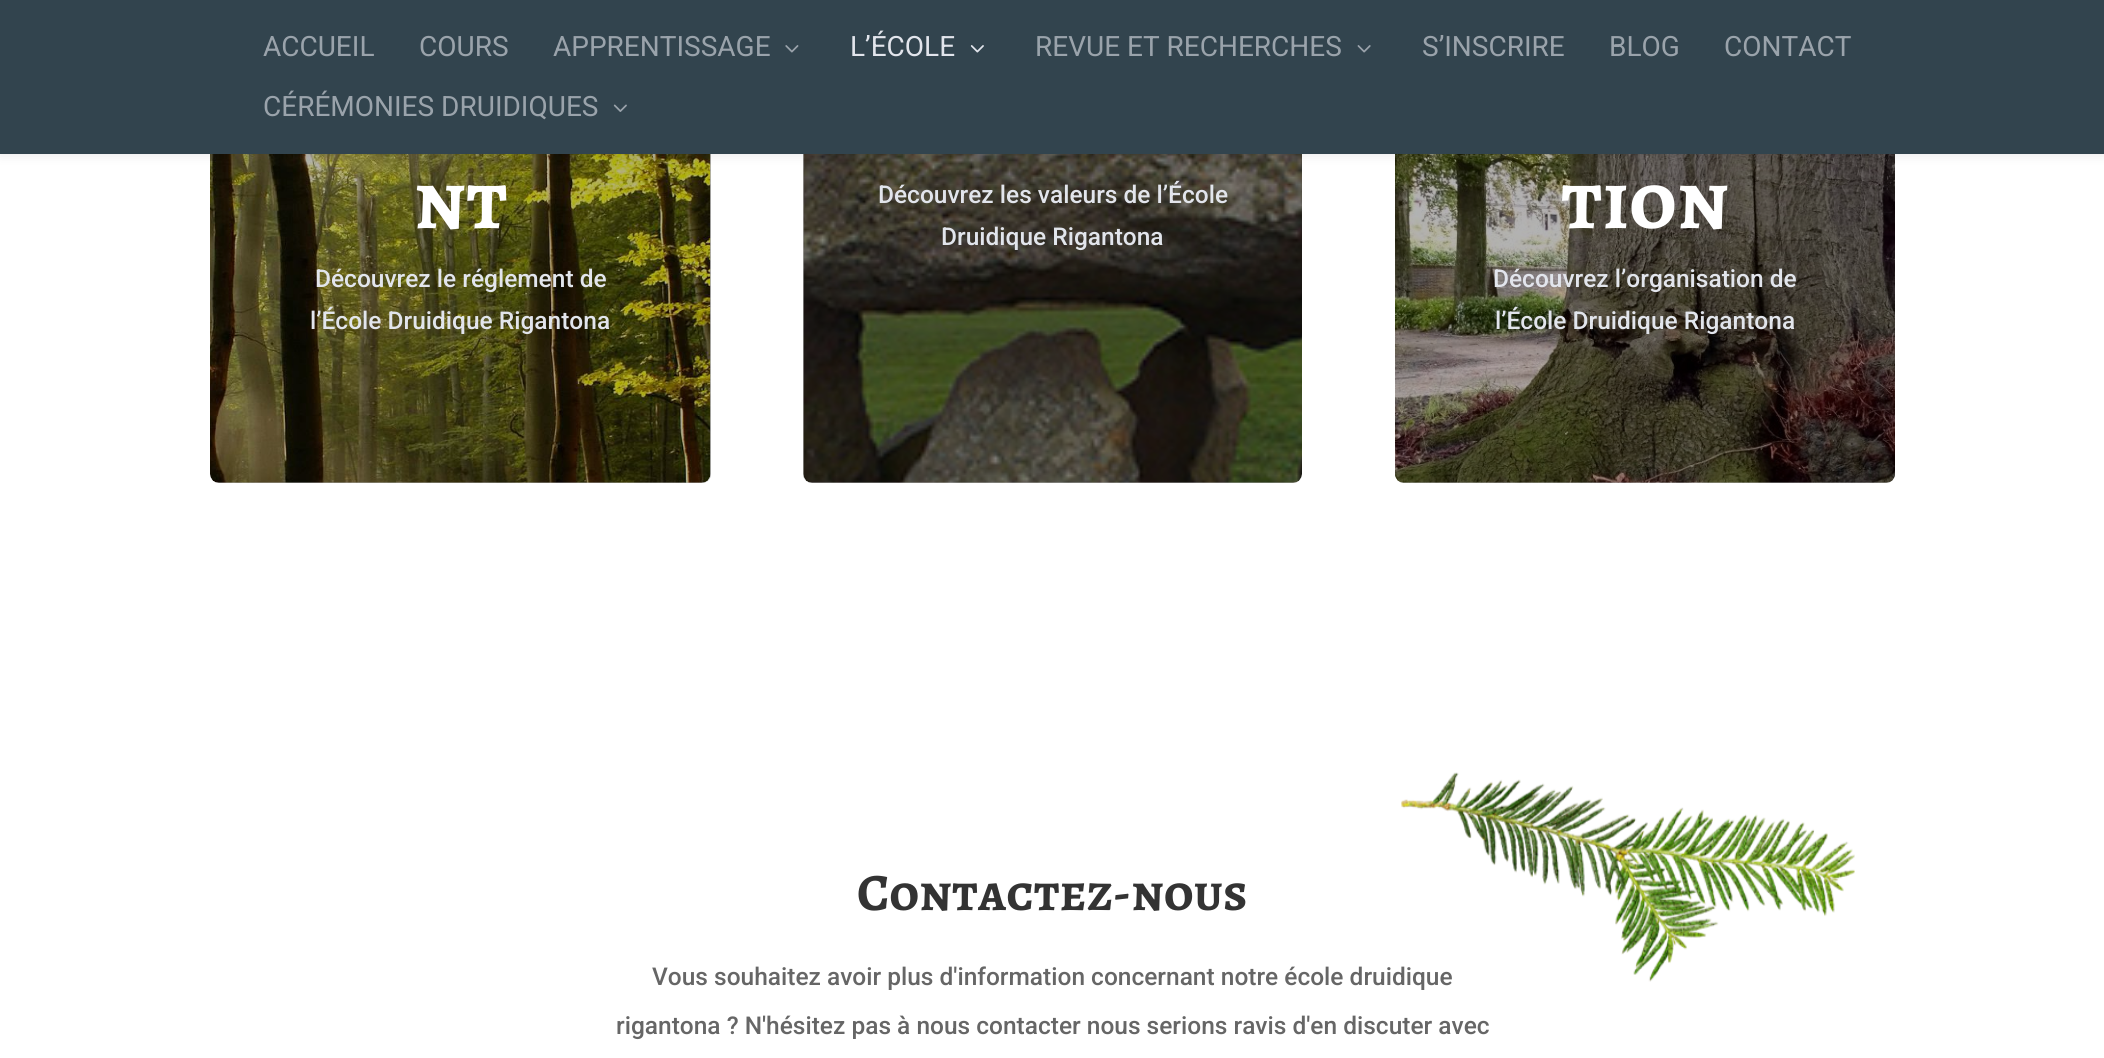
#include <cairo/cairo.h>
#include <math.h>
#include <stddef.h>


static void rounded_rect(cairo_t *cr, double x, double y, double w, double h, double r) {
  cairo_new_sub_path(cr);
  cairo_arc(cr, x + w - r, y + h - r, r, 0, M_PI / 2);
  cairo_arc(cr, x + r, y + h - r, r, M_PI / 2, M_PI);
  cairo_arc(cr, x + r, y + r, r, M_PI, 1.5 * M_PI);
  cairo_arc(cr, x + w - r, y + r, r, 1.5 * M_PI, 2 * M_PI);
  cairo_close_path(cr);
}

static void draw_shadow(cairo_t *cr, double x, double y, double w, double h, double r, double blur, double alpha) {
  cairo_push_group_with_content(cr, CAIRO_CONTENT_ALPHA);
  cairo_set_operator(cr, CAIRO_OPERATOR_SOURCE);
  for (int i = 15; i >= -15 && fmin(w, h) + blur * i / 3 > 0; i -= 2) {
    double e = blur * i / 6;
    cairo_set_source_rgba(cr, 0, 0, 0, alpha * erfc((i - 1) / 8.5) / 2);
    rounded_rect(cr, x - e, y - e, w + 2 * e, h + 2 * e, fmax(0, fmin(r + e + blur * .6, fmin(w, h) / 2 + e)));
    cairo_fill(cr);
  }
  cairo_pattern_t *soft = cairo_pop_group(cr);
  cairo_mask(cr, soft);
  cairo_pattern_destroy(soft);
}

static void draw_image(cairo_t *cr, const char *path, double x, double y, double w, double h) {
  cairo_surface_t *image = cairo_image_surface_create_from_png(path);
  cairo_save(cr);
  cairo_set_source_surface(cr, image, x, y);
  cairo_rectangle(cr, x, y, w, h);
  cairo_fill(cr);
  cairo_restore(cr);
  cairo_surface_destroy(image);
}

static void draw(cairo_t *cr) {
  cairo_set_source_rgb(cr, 1, 1, 1);
  cairo_paint(cr);
  draw_image(cr, "images/5.png", 210, 154, 501, 329);
  cairo_set_source_rgba(cr, 0, 0, 0, 0.3);
  rounded_rect(cr, 210, -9, 501, 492, 9);
  cairo_fill(cr);
  draw_image(cr, "images/6.png", 803, 154, 499, 329);
  rounded_rect(cr, 803, -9, 499, 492, 9);
  cairo_fill(cr);
  draw_image(cr, "images/7.png", 1395, 154, 500, 329);
  rounded_rect(cr, 1395, -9, 500, 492, 9);
  cairo_fill(cr);
  cairo_set_source_rgb(cr, 0, 0, 0);
  draw_shadow(cr, 0, 0, 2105, 154, 0, 6, 0.1);
  cairo_set_source_rgb(cr, 50 / 255.0, 68 / 255.0, 78 / 255.0);
  cairo_rectangle(cr, 0, 0, 2104, 154);
  cairo_fill(cr);
  draw_image(cr, "images/1.png", 785, 45, 14, 8);
  draw_image(cr, "images/2.png", 970, 45, 14, 8);
  draw_image(cr, "images/3.png", 1357, 45, 14, 8);
  draw_image(cr, "images/4.png", 613, 104, 14, 8);
  draw_image(cr, "images/8.png", 1401, 772, 454, 210);
  cairo_select_font_face(cr, "Roboto", CAIRO_FONT_SLANT_NORMAL, CAIRO_FONT_WEIGHT_NORMAL);
  cairo_set_font_size(cr, 28);
  cairo_set_source_rgb(cr, 154 / 255.0, 163 / 255.0, 171 / 255.0);
  cairo_move_to(cr, 263, 56);
  cairo_show_text(cr, "ACCUEIL");
  cairo_move_to(cr, 419, 56);
  cairo_show_text(cr, "COURS");
  cairo_move_to(cr, 553, 56);
  cairo_show_text(cr, "APPRENTISSAGE");
  cairo_set_source_rgb(cr, 226 / 255.0, 229 / 255.0, 236 / 255.0);
  cairo_move_to(cr, 850, 56);
  cairo_show_text(cr, "L’ÉCOLE");
  cairo_set_source_rgb(cr, 154 / 255.0, 163 / 255.0, 171 / 255.0);
  cairo_move_to(cr, 1035, 56);
  cairo_show_text(cr, "REVUE ET RECHERCHES");
  cairo_move_to(cr, 1422, 56);
  cairo_show_text(cr, "S’INSCRIRE");
  cairo_move_to(cr, 1609, 56);
  cairo_show_text(cr, "BLOG");
  cairo_move_to(cr, 1724, 56);
  cairo_show_text(cr, "CONTACT");
  cairo_move_to(cr, 263, 116);
  cairo_show_text(cr, "CÉRÉMONIES DRUIDIQUES");
  cairo_select_font_face(cr, "Alegreya SC", CAIRO_FONT_SLANT_NORMAL, CAIRO_FONT_WEIGHT_BOLD);
  cairo_set_font_size(cr, 84);
  cairo_set_source_rgb(cr, 1, 1, 1);
  cairo_move_to(cr, 414, 228);
  cairo_show_text(cr, "nt");
  cairo_select_font_face(cr, "Roboto Medium", CAIRO_FONT_SLANT_NORMAL, CAIRO_FONT_WEIGHT_NORMAL);
  cairo_set_font_size(cr, 24.5);
  cairo_set_source_rgb(cr, 226 / 255.0, 229 / 255.0, 236 / 255.0);
  cairo_move_to(cr, 315, 287);
  cairo_show_text(cr, "Découvrez le réglement de");
  cairo_move_to(cr, 310, 329);
  cairo_show_text(cr, "l’École Druidique Rigantona");
  cairo_move_to(cr, 878, 203);
  cairo_show_text(cr, "Découvrez les valeurs de l’École");
  cairo_move_to(cr, 941, 245);
  cairo_show_text(cr, "Druidique Rigantona");
  cairo_select_font_face(cr, "Alegreya SC", CAIRO_FONT_SLANT_NORMAL, CAIRO_FONT_WEIGHT_BOLD);
  cairo_set_font_size(cr, 84);
  cairo_set_source_rgb(cr, 1, 1, 1);
  cairo_move_to(cr, 1561, 228);
  cairo_show_text(cr, "tion");
  cairo_select_font_face(cr, "Roboto Medium", CAIRO_FONT_SLANT_NORMAL, CAIRO_FONT_WEIGHT_NORMAL);
  cairo_set_font_size(cr, 24.5);
  cairo_set_source_rgb(cr, 226 / 255.0, 229 / 255.0, 236 / 255.0);
  cairo_move_to(cr, 1493, 287);
  cairo_show_text(cr, "Découvrez l’organisation de");
  cairo_move_to(cr, 1495, 329);
  cairo_show_text(cr, "l’École Druidique Rigantona");
  cairo_select_font_face(cr, "Alegreya SC", CAIRO_FONT_SLANT_NORMAL, CAIRO_FONT_WEIGHT_BOLD);
  cairo_set_font_size(cr, 52.5);
  cairo_set_source_rgb(cr, 51 / 255.0, 51 / 255.0, 51 / 255.0);
  cairo_move_to(cr, 857, 910);
  cairo_show_text(cr, "Contactez-nous");
  cairo_select_font_face(cr, "Roboto Medium", CAIRO_FONT_SLANT_NORMAL, CAIRO_FONT_WEIGHT_NORMAL);
  cairo_set_font_size(cr, 24.5);
  cairo_set_source_rgb(cr, 102 / 255.0, 102 / 255.0, 102 / 255.0);
  cairo_move_to(cr, 652, 985);
  cairo_show_text(cr, "Vous souhaitez avoir plus d'information concernant notre école druidique");
  cairo_move_to(cr, 616, 1034);
  cairo_show_text(cr, "rigantona ? N'hésitez pas à nous contacter nous serions ravis d'en discuter avec");
}

int main(void) {
  cairo_surface_t *surface = cairo_image_surface_create(CAIRO_FORMAT_RGB24, 2104, 1058);
  cairo_t *cr = cairo_create(surface);
  cairo_font_options_t *options = cairo_font_options_create();
  cairo_font_options_set_hint_metrics(options, CAIRO_HINT_METRICS_OFF);
  cairo_font_options_set_hint_style(options, CAIRO_HINT_STYLE_NONE);
  cairo_set_font_options(cr, options);
  cairo_set_miter_limit(cr, 4);
  draw(cr);
  cairo_surface_write_to_png(surface, "out.png");
  cairo_font_options_destroy(options);
  cairo_destroy(cr);
  cairo_surface_destroy(surface);
  return 0;
}
